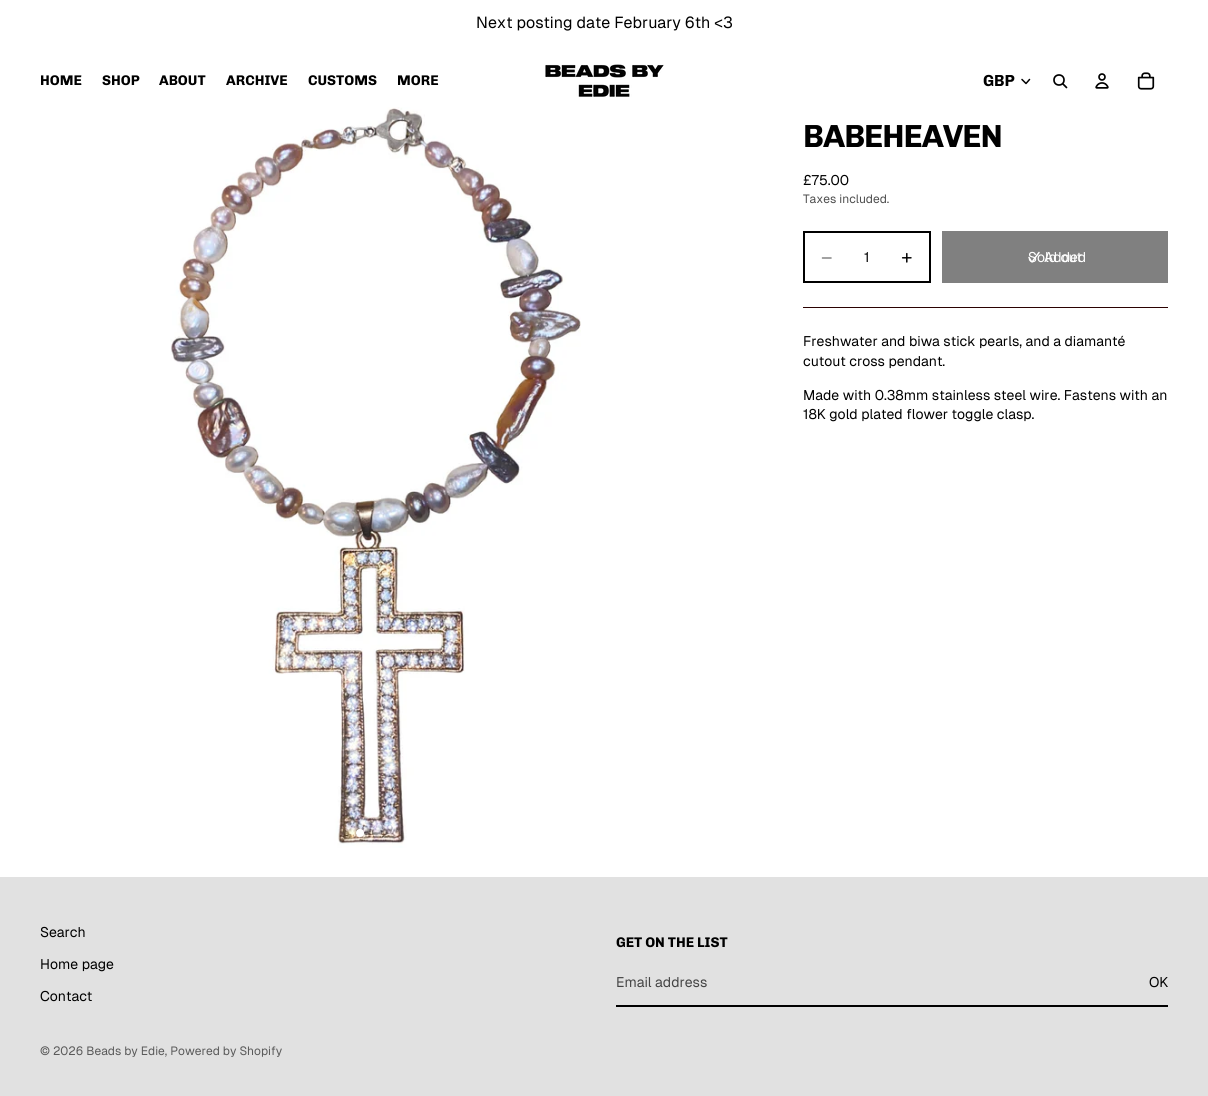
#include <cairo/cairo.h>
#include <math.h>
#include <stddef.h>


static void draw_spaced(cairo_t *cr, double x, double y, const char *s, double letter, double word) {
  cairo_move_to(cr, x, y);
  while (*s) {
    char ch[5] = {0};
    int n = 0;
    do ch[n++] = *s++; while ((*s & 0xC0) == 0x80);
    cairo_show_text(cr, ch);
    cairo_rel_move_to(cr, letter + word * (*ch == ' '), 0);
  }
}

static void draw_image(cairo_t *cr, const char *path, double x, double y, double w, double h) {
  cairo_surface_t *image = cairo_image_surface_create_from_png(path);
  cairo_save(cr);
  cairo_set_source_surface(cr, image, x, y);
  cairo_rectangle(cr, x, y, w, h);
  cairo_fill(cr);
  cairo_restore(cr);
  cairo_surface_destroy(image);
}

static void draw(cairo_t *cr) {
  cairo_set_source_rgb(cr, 1, 1, 1);
  cairo_paint(cr);
  draw_image(cr, "images/1.png", 545, 64, 119, 33);
  cairo_new_path(cr);
  cairo_move_to(cr, 1029.5, 79.5);
  cairo_line_to(cr, 1026, 83.5);
  cairo_line_to(cr, 1022, 79.5);
  cairo_set_source_rgb(cr, 0, 0, 0);
  cairo_set_line_width(cr, 1.5);
  cairo_set_line_cap(cr, CAIRO_LINE_CAP_ROUND);
  cairo_set_line_join(cr, CAIRO_LINE_JOIN_ROUND);
  cairo_stroke(cr);
  cairo_arc(cr, 1059, 80, 5, 0, 2 * M_PI);
  cairo_set_line_width(cr, 1.7);
  cairo_set_line_cap(cr, CAIRO_LINE_CAP_BUTT);
  cairo_set_line_join(cr, CAIRO_LINE_JOIN_MITER);
  cairo_stroke(cr);
  cairo_new_path(cr);
  cairo_move_to(cr, 1063, 84);
  cairo_line_to(cr, 1066.5, 87.5);
  cairo_set_line_cap(cr, CAIRO_LINE_CAP_ROUND);
  cairo_set_line_join(cr, CAIRO_LINE_JOIN_ROUND);
  cairo_stroke(cr);
  draw_image(cr, "images/2.png", 1095, 73, 14, 16);
  draw_image(cr, "images/3.png", 1137, 72, 18, 18);
  draw_image(cr, "images/4.png", 170, 107, 411, 741);
  cairo_set_source_rgb(cr, 1, 1, 1);
  cairo_arc(cr, 360, 833, 4, 0, 2 * M_PI);
  cairo_fill(cr);
  cairo_set_source_rgba(cr, 1, 1, 1, 0.3);
  cairo_arc(cr, 377, 833, 4, 0, 2 * M_PI);
  cairo_fill(cr);
  cairo_arc(cr, 395, 833, 4, 0, 2 * M_PI);
  cairo_fill(cr);
  cairo_rectangle(cr, 804, 232, 126, 50);
  cairo_set_source_rgb(cr, 0, 0, 0);
  cairo_set_line_width(cr, 2);
  cairo_set_line_cap(cr, CAIRO_LINE_CAP_BUTT);
  cairo_set_line_join(cr, CAIRO_LINE_JOIN_MITER);
  cairo_stroke(cr);
  cairo_new_path(cr);
  cairo_move_to(cr, 822.5, 258);
  cairo_line_to(cr, 831, 258);
  cairo_set_source_rgb(cr, 128 / 255.0, 128 / 255.0, 128 / 255.0);
  cairo_set_line_width(cr, 1.5);
  cairo_set_line_cap(cr, CAIRO_LINE_CAP_ROUND);
  cairo_stroke(cr);
  draw_image(cr, "images/5.png", 901, 252, 11, 11);
  cairo_rectangle(cr, 942, 231, 226, 52);
  cairo_fill(cr);
  cairo_new_path(cr);
  cairo_move_to(cr, 1029, 257.5);
  cairo_line_to(cr, 1031, 261);
  cairo_curve_to(cr, 1032.5, 262.5, 1032, 262, 1033.5, 260);
  cairo_line_to(cr, 1039, 252.5);
  cairo_set_source_rgb(cr, 1, 1, 1);
  cairo_set_line_join(cr, CAIRO_LINE_JOIN_ROUND);
  cairo_stroke(cr);
  cairo_set_source_rgb(cr, 43 / 255.0, 1 / 255.0, 1 / 255.0);
  cairo_rectangle(cr, 803, 307, 365, 1);
  cairo_fill(cr);
  cairo_set_source_rgb(cr, 225 / 255.0, 225 / 255.0, 225 / 255.0);
  cairo_rectangle(cr, 0, 877, 1208, 219);
  cairo_fill(cr);
  cairo_set_source_rgb(cr, 0, 0, 0);
  cairo_rectangle(cr, 616, 1005, 552, 2);
  cairo_fill(cr);
  cairo_select_font_face(cr, "Geist", CAIRO_FONT_SLANT_NORMAL, CAIRO_FONT_WEIGHT_NORMAL);
  cairo_set_font_size(cr, 16);
  cairo_move_to(cr, 476, 28);
  cairo_show_text(cr, "Next posting date February 6th <3");
  cairo_select_font_face(cr, "Chivo", CAIRO_FONT_SLANT_NORMAL, CAIRO_FONT_WEIGHT_BOLD);
  cairo_set_font_size(cr, 14);
  cairo_move_to(cr, 40, 85);
  cairo_show_text(cr, "HOME");
  cairo_move_to(cr, 102, 85);
  cairo_show_text(cr, "SHOP");
  cairo_move_to(cr, 159, 85);
  cairo_show_text(cr, "ABOUT");
  cairo_move_to(cr, 226, 85);
  cairo_show_text(cr, "ARCHIVE");
  cairo_move_to(cr, 308, 85);
  cairo_show_text(cr, "CUSTOMS");
  cairo_move_to(cr, 397, 85);
  cairo_show_text(cr, "MORE");
  cairo_set_font_size(cr, 16);
  cairo_move_to(cr, 983, 86);
  cairo_show_text(cr, "GBP");
  cairo_set_font_size(cr, 32);
  draw_spaced(cr, 803, 147, "BABEHEAVEN", -1, 0);
  cairo_select_font_face(cr, "Geist", CAIRO_FONT_SLANT_NORMAL, CAIRO_FONT_WEIGHT_NORMAL);
  cairo_set_font_size(cr, 14);
  cairo_move_to(cr, 803, 185);
  cairo_show_text(cr, "£75.00");
  cairo_set_font_size(cr, 12);
  cairo_set_source_rgb(cr, 77 / 255.0, 77 / 255.0, 77 / 255.0);
  cairo_move_to(cr, 803, 203);
  cairo_show_text(cr, "Taxes included.");
  cairo_set_font_size(cr, 14);
  cairo_set_source_rgb(cr, 0, 0, 0);
  cairo_move_to(cr, 864, 262);
  cairo_show_text(cr, "1");
  cairo_set_source_rgb(cr, 1, 1, 1);
  cairo_move_to(cr, 1028, 262);
  cairo_show_text(cr, "Sold out");
  cairo_move_to(cr, 1044, 262);
  cairo_show_text(cr, "Added");
  cairo_set_source_rgb(cr, 0, 0, 0);
  cairo_move_to(cr, 803, 346);
  cairo_show_text(cr, "Freshwater and biwa stick pearls, and a diamanté");
  cairo_move_to(cr, 803, 366);
  cairo_show_text(cr, "cutout cross pendant.");
  cairo_move_to(cr, 803, 400);
  cairo_show_text(cr, "Made with 0.38mm stainless steel wire. Fastens with an");
  cairo_move_to(cr, 803, 419);
  cairo_show_text(cr, "18K gold plated flower toggle clasp.");
  cairo_move_to(cr, 40, 937);
  cairo_show_text(cr, "Search");
  cairo_move_to(cr, 40, 969);
  cairo_show_text(cr, "Home page");
  cairo_move_to(cr, 40, 1001);
  cairo_show_text(cr, "Contact");
  cairo_select_font_face(cr, "Chivo", CAIRO_FONT_SLANT_NORMAL, CAIRO_FONT_WEIGHT_BOLD);
  cairo_move_to(cr, 616, 947);
  cairo_show_text(cr, "GET ON THE LIST");
  cairo_select_font_face(cr, "Geist", CAIRO_FONT_SLANT_NORMAL, CAIRO_FONT_WEIGHT_NORMAL);
  cairo_set_source_rgb(cr, 68 / 255.0, 68 / 255.0, 68 / 255.0);
  cairo_move_to(cr, 616, 987);
  cairo_show_text(cr, "Email address");
  cairo_set_source_rgb(cr, 0, 0, 0);
  cairo_move_to(cr, 1149, 987);
  cairo_show_text(cr, "OK");
  cairo_set_font_size(cr, 12);
  cairo_set_source_rgb(cr, 90 / 255.0, 90 / 255.0, 90 / 255.0);
  cairo_move_to(cr, 40, 1055);
  cairo_show_text(cr, "© 2026 Beads by Edie, Powered by Shopify");
}

int main(void) {
  cairo_surface_t *surface = cairo_image_surface_create(CAIRO_FORMAT_RGB24, 1208, 1096);
  cairo_t *cr = cairo_create(surface);
  cairo_font_options_t *options = cairo_font_options_create();
  cairo_font_options_set_hint_metrics(options, CAIRO_HINT_METRICS_OFF);
  cairo_font_options_set_hint_style(options, CAIRO_HINT_STYLE_NONE);
  cairo_set_font_options(cr, options);
  cairo_set_miter_limit(cr, 4);
  draw(cr);
  cairo_surface_write_to_png(surface, "out.png");
  cairo_font_options_destroy(options);
  cairo_destroy(cr);
  cairo_surface_destroy(surface);
  return 0;
}
